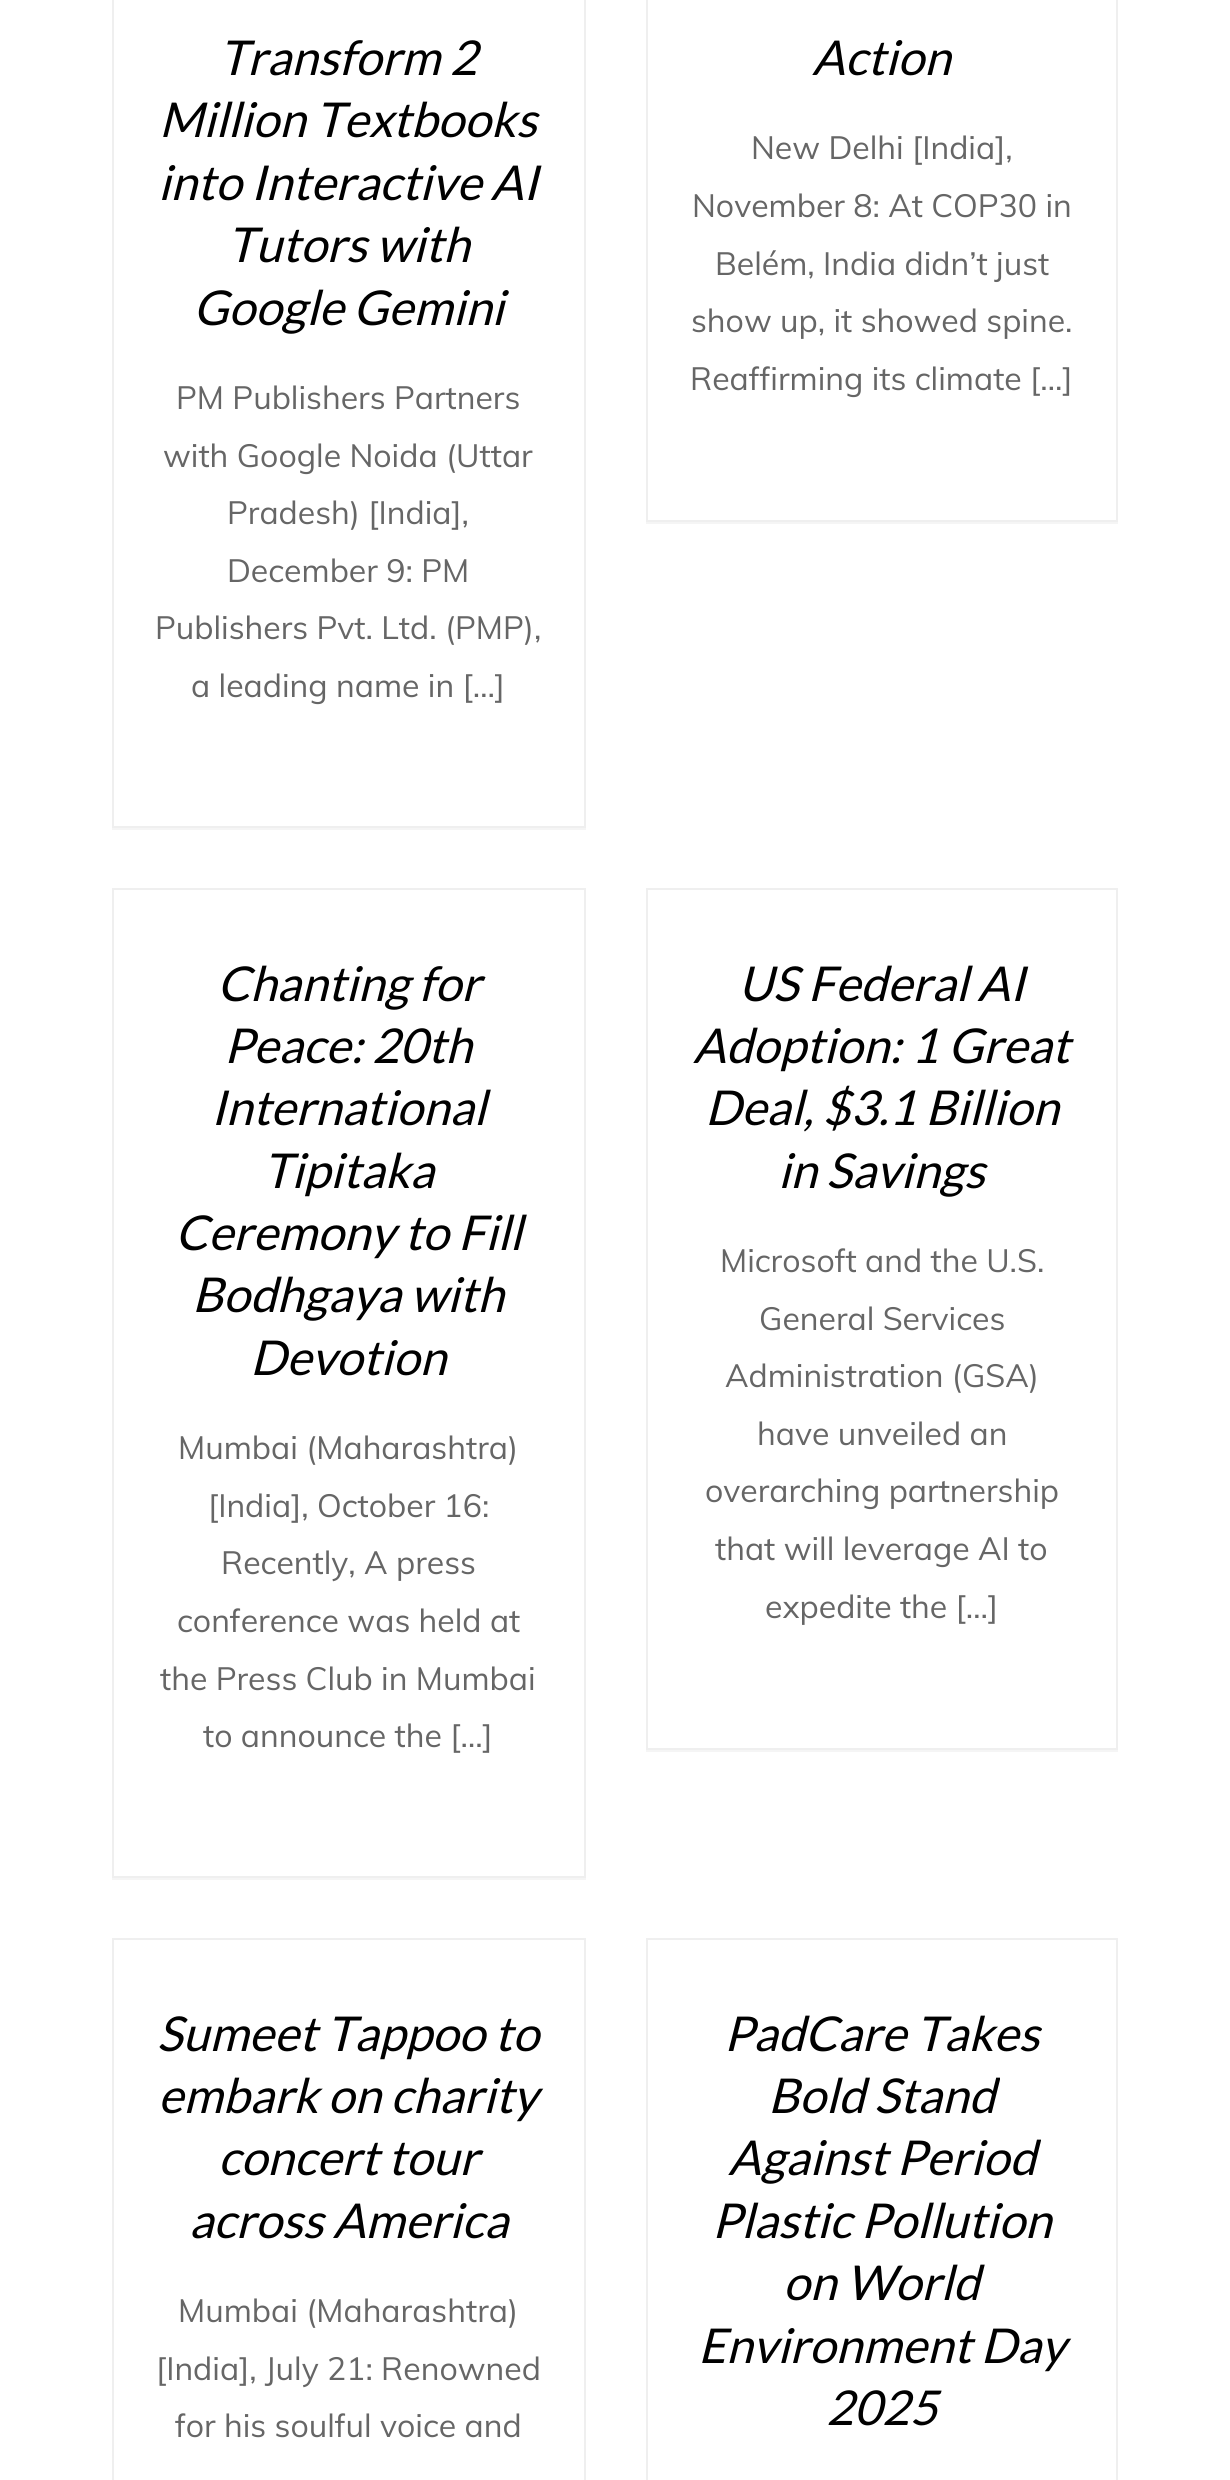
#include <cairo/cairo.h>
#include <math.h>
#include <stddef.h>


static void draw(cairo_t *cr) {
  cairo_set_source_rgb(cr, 1, 1, 1);
  cairo_paint(cr);
  cairo_set_source_rgb(cr, 245 / 255.0, 245 / 255.0, 245 / 255.0);
  cairo_rectangle(cr, 112, 828, 474, 2);
  cairo_fill(cr);
  cairo_rectangle(cr, 113, -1, 472, 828);
  cairo_set_source_rgb(cr, 239 / 255.0, 239 / 255.0, 239 / 255.0);
  cairo_stroke(cr);
  cairo_set_source_rgb(cr, 245 / 255.0, 245 / 255.0, 245 / 255.0);
  cairo_rectangle(cr, 646, 522, 472, 2);
  cairo_fill(cr);
  cairo_rectangle(cr, 647, -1, 470, 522);
  cairo_set_source_rgb(cr, 239 / 255.0, 239 / 255.0, 239 / 255.0);
  cairo_stroke(cr);
  cairo_set_source_rgb(cr, 245 / 255.0, 245 / 255.0, 245 / 255.0);
  cairo_rectangle(cr, 112, 1878, 474, 2);
  cairo_fill(cr);
  cairo_rectangle(cr, 113, 889, 472, 988);
  cairo_set_source_rgb(cr, 239 / 255.0, 239 / 255.0, 239 / 255.0);
  cairo_stroke(cr);
  cairo_set_source_rgb(cr, 245 / 255.0, 245 / 255.0, 245 / 255.0);
  cairo_rectangle(cr, 646, 1750, 472, 2);
  cairo_fill(cr);
  cairo_rectangle(cr, 647, 889, 470, 860);
  cairo_set_source_rgb(cr, 239 / 255.0, 239 / 255.0, 239 / 255.0);
  cairo_stroke(cr);
  cairo_rectangle(cr, 113, 1939, 472, 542);
  cairo_stroke(cr);
  cairo_rectangle(cr, 647, 1939, 470, 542);
  cairo_stroke(cr);
  cairo_select_font_face(cr, "Lato", CAIRO_FONT_SLANT_ITALIC, CAIRO_FONT_WEIGHT_NORMAL);
  cairo_set_font_size(cr, 48);
  cairo_set_source_rgb(cr, 0, 0, 0);
  cairo_move_to(cr, 219, 75);
  cairo_show_text(cr, "Transform 2");
  cairo_move_to(cr, 159, 137);
  cairo_show_text(cr, "Million Textbooks");
  cairo_move_to(cr, 158, 200);
  cairo_show_text(cr, "into Interactive AI");
  cairo_move_to(cr, 227, 262);
  cairo_show_text(cr, "Tutors with");
  cairo_move_to(cr, 193, 325);
  cairo_show_text(cr, "Google Gemini");
  cairo_select_font_face(cr, "Muli", CAIRO_FONT_SLANT_NORMAL, CAIRO_FONT_WEIGHT_NORMAL);
  cairo_set_font_size(cr, 32);
  cairo_set_source_rgb(cr, 102 / 255.0, 102 / 255.0, 102 / 255.0);
  cairo_move_to(cr, 176, 409);
  cairo_show_text(cr, "PM Publishers Partners");
  cairo_move_to(cr, 163, 467);
  cairo_show_text(cr, "with Google Noida (Uttar");
  cairo_move_to(cr, 227, 524);
  cairo_show_text(cr, "Pradesh) [India],");
  cairo_move_to(cr, 227, 582);
  cairo_show_text(cr, "December 9: PM");
  cairo_move_to(cr, 155, 639);
  cairo_show_text(cr, "Publishers Pvt. Ltd. (PMP),");
  cairo_move_to(cr, 191, 697);
  cairo_show_text(cr, "a leading name in […]");
  cairo_select_font_face(cr, "Lato", CAIRO_FONT_SLANT_ITALIC, CAIRO_FONT_WEIGHT_NORMAL);
  cairo_set_font_size(cr, 48);
  cairo_set_source_rgb(cr, 0, 0, 0);
  cairo_move_to(cr, 812, 75);
  cairo_show_text(cr, "Action");
  cairo_select_font_face(cr, "Muli", CAIRO_FONT_SLANT_NORMAL, CAIRO_FONT_WEIGHT_NORMAL);
  cairo_set_font_size(cr, 32);
  cairo_set_source_rgb(cr, 102 / 255.0, 102 / 255.0, 102 / 255.0);
  cairo_move_to(cr, 751, 159);
  cairo_show_text(cr, "New Delhi [India],");
  cairo_move_to(cr, 692, 217);
  cairo_show_text(cr, "November 8: At COP30 in");
  cairo_move_to(cr, 715, 275);
  cairo_show_text(cr, "Belém, India didn’t just");
  cairo_move_to(cr, 691, 332);
  cairo_show_text(cr, "show up, it showed spine.");
  cairo_move_to(cr, 690, 390);
  cairo_show_text(cr, "Reaffirming its climate […]");
  cairo_select_font_face(cr, "Lato", CAIRO_FONT_SLANT_ITALIC, CAIRO_FONT_WEIGHT_NORMAL);
  cairo_set_font_size(cr, 48);
  cairo_set_source_rgb(cr, 0, 0, 0);
  cairo_move_to(cr, 217, 1001);
  cairo_show_text(cr, "Chanting for");
  cairo_move_to(cr, 224, 1063);
  cairo_show_text(cr, "Peace: 20th");
  cairo_move_to(cr, 211, 1125);
  cairo_show_text(cr, "International");
  cairo_move_to(cr, 263, 1188);
  cairo_show_text(cr, "Tipitaka");
  cairo_move_to(cr, 175, 1250);
  cairo_show_text(cr, "Ceremony to Fill");
  cairo_move_to(cr, 192, 1312);
  cairo_show_text(cr, "Bodhgaya with");
  cairo_move_to(cr, 250, 1375);
  cairo_show_text(cr, "Devotion");
  cairo_select_font_face(cr, "Muli", CAIRO_FONT_SLANT_NORMAL, CAIRO_FONT_WEIGHT_NORMAL);
  cairo_set_font_size(cr, 32);
  cairo_set_source_rgb(cr, 102 / 255.0, 102 / 255.0, 102 / 255.0);
  cairo_move_to(cr, 178, 1459);
  cairo_show_text(cr, "Mumbai (Maharashtra)");
  cairo_move_to(cr, 208, 1517);
  cairo_show_text(cr, "[India], October 16:");
  cairo_move_to(cr, 221, 1574);
  cairo_show_text(cr, "Recently, A press");
  cairo_move_to(cr, 177, 1632);
  cairo_show_text(cr, "conference was held at");
  cairo_move_to(cr, 160, 1690);
  cairo_show_text(cr, "the Press Club in Mumbai");
  cairo_move_to(cr, 203, 1747);
  cairo_show_text(cr, "to announce the […]");
  cairo_select_font_face(cr, "Lato", CAIRO_FONT_SLANT_ITALIC, CAIRO_FONT_WEIGHT_NORMAL);
  cairo_set_font_size(cr, 48);
  cairo_set_source_rgb(cr, 0, 0, 0);
  cairo_move_to(cr, 738, 1001);
  cairo_show_text(cr, "US Federal AI");
  cairo_move_to(cr, 693, 1063);
  cairo_show_text(cr, "Adoption: 1 Great");
  cairo_move_to(cr, 705, 1125);
  cairo_show_text(cr, "Deal, $3.1 Billion");
  cairo_move_to(cr, 778, 1188);
  cairo_show_text(cr, "in Savings");
  cairo_select_font_face(cr, "Muli", CAIRO_FONT_SLANT_NORMAL, CAIRO_FONT_WEIGHT_NORMAL);
  cairo_set_font_size(cr, 32);
  cairo_set_source_rgb(cr, 102 / 255.0, 102 / 255.0, 102 / 255.0);
  cairo_move_to(cr, 720, 1272);
  cairo_show_text(cr, "Microsoft and the U.S.");
  cairo_move_to(cr, 759, 1330);
  cairo_show_text(cr, "General Services");
  cairo_move_to(cr, 725, 1387);
  cairo_show_text(cr, "Administration (GSA)");
  cairo_move_to(cr, 757, 1445);
  cairo_show_text(cr, "have unveiled an");
  cairo_move_to(cr, 705, 1502);
  cairo_show_text(cr, "overarching partnership");
  cairo_move_to(cr, 715, 1560);
  cairo_show_text(cr, "that will leverage AI to");
  cairo_move_to(cr, 765, 1618);
  cairo_show_text(cr, "expedite the […]");
  cairo_select_font_face(cr, "Lato", CAIRO_FONT_SLANT_ITALIC, CAIRO_FONT_WEIGHT_NORMAL);
  cairo_set_font_size(cr, 48);
  cairo_set_source_rgb(cr, 0, 0, 0);
  cairo_move_to(cr, 157, 2051);
  cairo_show_text(cr, "Sumeet Tappoo to");
  cairo_move_to(cr, 158, 2113);
  cairo_show_text(cr, "embark on charity");
  cairo_move_to(cr, 218, 2175);
  cairo_show_text(cr, "concert tour");
  cairo_move_to(cr, 189, 2238);
  cairo_show_text(cr, "across America");
  cairo_select_font_face(cr, "Muli", CAIRO_FONT_SLANT_NORMAL, CAIRO_FONT_WEIGHT_NORMAL);
  cairo_set_font_size(cr, 32);
  cairo_set_source_rgb(cr, 102 / 255.0, 102 / 255.0, 102 / 255.0);
  cairo_move_to(cr, 178, 2322);
  cairo_show_text(cr, "Mumbai (Maharashtra)");
  cairo_move_to(cr, 156, 2380);
  cairo_show_text(cr, "[India], July 21: Renowned");
  cairo_move_to(cr, 175, 2437);
  cairo_show_text(cr, "for his soulful voice and");
  cairo_select_font_face(cr, "Lato", CAIRO_FONT_SLANT_ITALIC, CAIRO_FONT_WEIGHT_NORMAL);
  cairo_set_font_size(cr, 48);
  cairo_set_source_rgb(cr, 0, 0, 0);
  cairo_move_to(cr, 724, 2051);
  cairo_show_text(cr, "PadCare Takes");
  cairo_move_to(cr, 768, 2113);
  cairo_show_text(cr, "Bold Stand");
  cairo_move_to(cr, 728, 2175);
  cairo_show_text(cr, "Against Period");
  cairo_move_to(cr, 712, 2238);
  cairo_show_text(cr, "Plastic Pollution");
  cairo_move_to(cr, 783, 2300);
  cairo_show_text(cr, "on World");
  cairo_move_to(cr, 698, 2363);
  cairo_show_text(cr, "Environment Day");
  cairo_move_to(cr, 826, 2425);
  cairo_show_text(cr, "2025");
}

int main(void) {
  cairo_surface_t *surface = cairo_image_surface_create(CAIRO_FORMAT_RGB24, 1230, 2480);
  cairo_t *cr = cairo_create(surface);
  cairo_font_options_t *options = cairo_font_options_create();
  cairo_font_options_set_hint_metrics(options, CAIRO_HINT_METRICS_OFF);
  cairo_font_options_set_hint_style(options, CAIRO_HINT_STYLE_NONE);
  cairo_set_font_options(cr, options);
  cairo_set_miter_limit(cr, 4);
  draw(cr);
  cairo_surface_write_to_png(surface, "out.png");
  cairo_font_options_destroy(options);
  cairo_destroy(cr);
  cairo_surface_destroy(surface);
  return 0;
}
